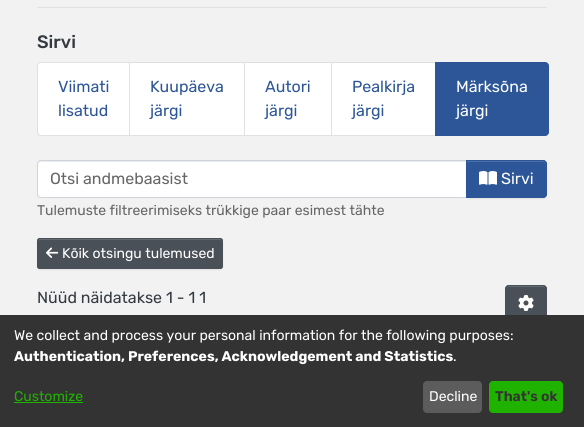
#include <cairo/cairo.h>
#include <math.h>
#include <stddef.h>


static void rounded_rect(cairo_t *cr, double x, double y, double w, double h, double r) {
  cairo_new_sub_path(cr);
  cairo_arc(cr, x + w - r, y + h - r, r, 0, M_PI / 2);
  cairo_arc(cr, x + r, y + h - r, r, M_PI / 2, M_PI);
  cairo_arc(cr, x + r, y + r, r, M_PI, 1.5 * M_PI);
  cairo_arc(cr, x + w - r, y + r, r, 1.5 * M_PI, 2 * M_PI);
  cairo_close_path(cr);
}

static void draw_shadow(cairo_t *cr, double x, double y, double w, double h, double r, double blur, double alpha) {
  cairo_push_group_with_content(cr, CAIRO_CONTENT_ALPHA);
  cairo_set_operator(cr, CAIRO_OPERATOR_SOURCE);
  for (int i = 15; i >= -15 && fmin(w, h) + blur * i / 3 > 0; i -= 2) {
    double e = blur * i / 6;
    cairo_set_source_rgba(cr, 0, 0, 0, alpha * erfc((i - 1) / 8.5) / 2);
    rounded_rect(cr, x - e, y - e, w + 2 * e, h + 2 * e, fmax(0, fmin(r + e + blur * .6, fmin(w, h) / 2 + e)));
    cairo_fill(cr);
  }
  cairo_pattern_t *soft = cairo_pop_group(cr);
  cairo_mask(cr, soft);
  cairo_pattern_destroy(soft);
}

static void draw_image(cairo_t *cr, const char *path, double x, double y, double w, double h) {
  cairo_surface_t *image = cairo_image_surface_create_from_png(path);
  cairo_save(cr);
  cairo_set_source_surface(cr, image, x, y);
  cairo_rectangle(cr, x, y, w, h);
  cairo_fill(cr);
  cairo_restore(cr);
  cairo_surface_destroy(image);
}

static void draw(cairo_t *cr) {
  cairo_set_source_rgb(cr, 242 / 255.0, 242 / 255.0, 242 / 255.0);
  cairo_paint(cr);
  cairo_set_source_rgb(cr, 222 / 255.0, 226 / 255.0, 230 / 255.0);
  cairo_rectangle(cr, 37, 7, 510, 1);
  cairo_fill(cr);
  cairo_set_source_rgb(cr, 1, 1, 1);
  cairo_new_path(cr);
  cairo_move_to(cr, 41, 62);
  cairo_line_to(cr, 130, 62);
  cairo_line_to(cr, 130, 136);
  cairo_line_to(cr, 41, 136);
  cairo_curve_to(cr, 39, 136, 37, 134, 37, 132);
  cairo_line_to(cr, 37, 66);
  cairo_curve_to(cr, 37, 64, 39, 62, 41, 62);
  cairo_close_path(cr);
  cairo_fill(cr);
  cairo_new_path(cr);
  cairo_move_to(cr, 41, 62.5);
  cairo_line_to(cr, 129.5, 62.5);
  cairo_line_to(cr, 129.5, 135.5);
  cairo_line_to(cr, 41, 135.5);
  cairo_curve_to(cr, 39, 135.5, 37.5, 134, 37.5, 132);
  cairo_line_to(cr, 37.5, 66);
  cairo_curve_to(cr, 37.5, 64, 39, 62.5, 41, 62.5);
  cairo_close_path(cr);
  cairo_set_source_rgba(cr, 0, 0, 0, 0.12);
  cairo_set_line_width(cr, 1);
  cairo_stroke(cr);
  cairo_set_source_rgb(cr, 1, 1, 1);
  cairo_rectangle(cr, 130, 62, 202, 74);
  cairo_fill(cr);
  cairo_set_source_rgb(cr, 223 / 255.0, 223 / 255.0, 223 / 255.0);
  cairo_new_path(cr);
  cairo_move_to(cr, 130, 62);
  cairo_line_to(cr, 245, 62);
  cairo_line_to(cr, 244, 63);
  cairo_line_to(cr, 130, 63);
  cairo_close_path(cr);
  cairo_fill(cr);
  cairo_set_source_rgba(cr, 0, 0, 0, 0.12);
  cairo_new_path(cr);
  cairo_move_to(cr, 245, 62);
  cairo_line_to(cr, 245, 136);
  cairo_line_to(cr, 244, 135);
  cairo_line_to(cr, 244, 63);
  cairo_close_path(cr);
  cairo_fill(cr);
  cairo_new_path(cr);
  cairo_move_to(cr, 245, 136);
  cairo_line_to(cr, 130, 136);
  cairo_line_to(cr, 130, 135);
  cairo_line_to(cr, 244, 135);
  cairo_close_path(cr);
  cairo_fill(cr);
  cairo_set_source_rgb(cr, 223 / 255.0, 223 / 255.0, 223 / 255.0);
  cairo_new_path(cr);
  cairo_move_to(cr, 245, 62);
  cairo_line_to(cr, 332, 62);
  cairo_line_to(cr, 331, 63);
  cairo_line_to(cr, 245, 63);
  cairo_close_path(cr);
  cairo_fill(cr);
  cairo_set_source_rgba(cr, 0, 0, 0, 0.12);
  cairo_new_path(cr);
  cairo_move_to(cr, 332, 62);
  cairo_line_to(cr, 332, 136);
  cairo_line_to(cr, 331, 135);
  cairo_line_to(cr, 331, 63);
  cairo_close_path(cr);
  cairo_fill(cr);
  cairo_new_path(cr);
  cairo_move_to(cr, 332, 136);
  cairo_line_to(cr, 245, 136);
  cairo_line_to(cr, 245, 135);
  cairo_line_to(cr, 331, 135);
  cairo_close_path(cr);
  cairo_fill(cr);
  cairo_set_source_rgb(cr, 1, 1, 1);
  cairo_rectangle(cr, 332, 63, 103, 73);
  cairo_fill(cr);
  cairo_set_source_rgb(cr, 223 / 255.0, 223 / 255.0, 223 / 255.0);
  cairo_new_path(cr);
  cairo_move_to(cr, 332, 62);
  cairo_line_to(cr, 436, 62);
  cairo_line_to(cr, 435, 63);
  cairo_line_to(cr, 332, 63);
  cairo_close_path(cr);
  cairo_fill(cr);
  cairo_set_source_rgba(cr, 0, 0, 0, 0.12);
  cairo_new_path(cr);
  cairo_move_to(cr, 436, 136);
  cairo_line_to(cr, 332, 136);
  cairo_line_to(cr, 332, 135);
  cairo_line_to(cr, 435, 135);
  cairo_close_path(cr);
  cairo_fill(cr);
  cairo_set_source_rgb(cr, 44 / 255.0, 86 / 255.0, 151 / 255.0);
  cairo_new_path(cr);
  cairo_move_to(cr, 435.5, 62.5);
  cairo_line_to(cr, 545, 62.5);
  cairo_curve_to(cr, 547, 62.5, 548.5, 64, 548.5, 66);
  cairo_line_to(cr, 548.5, 132);
  cairo_curve_to(cr, 548.5, 134, 547, 135.5, 545, 135.5);
  cairo_line_to(cr, 435.5, 135.5);
  cairo_close_path(cr);
  cairo_fill_preserve(cr);
  cairo_stroke(cr);
  cairo_set_source_rgb(cr, 1, 1, 1);
  cairo_new_path(cr);
  cairo_move_to(cr, 41, 161);
  cairo_line_to(cr, 466, 161);
  cairo_line_to(cr, 466, 197);
  cairo_line_to(cr, 41, 197);
  cairo_curve_to(cr, 39.5, 197, 38, 195.5, 38, 194);
  cairo_line_to(cr, 38, 164);
  cairo_curve_to(cr, 38, 162.5, 39.5, 161, 41, 161);
  cairo_close_path(cr);
  cairo_fill(cr);
  cairo_set_source_rgb(cr, 236 / 255.0, 236 / 255.0, 236 / 255.0);
  cairo_new_path(cr);
  cairo_move_to(cr, 41, 162);
  cairo_line_to(cr, 466, 162);
  cairo_line_to(cr, 466, 161);
  cairo_line_to(cr, 41, 161);
  cairo_curve_to(cr, 39, 161, 38, 163, 38, 165);
  cairo_curve_to(cr, 38, 163, 39, 162, 41, 162);
  cairo_close_path(cr);
  cairo_fill(cr);
  cairo_new_path(cr);
  cairo_move_to(cr, 41, 160.5);
  cairo_line_to(cr, 466.5, 160.5);
  cairo_line_to(cr, 466.5, 197.5);
  cairo_line_to(cr, 41, 197.5);
  cairo_curve_to(cr, 39, 197.5, 37.5, 196, 37.5, 194);
  cairo_line_to(cr, 37.5, 164);
  cairo_curve_to(cr, 37.5, 162, 39, 160.5, 41, 160.5);
  cairo_close_path(cr);
  cairo_set_source_rgb(cr, 206 / 255.0, 212 / 255.0, 218 / 255.0);
  cairo_stroke(cr);
  cairo_set_source_rgb(cr, 0, 0, 0);
  draw_shadow(cr, 466, 161, 81, 38, 4, 0.5, 0.07);
  cairo_set_source_rgb(cr, 44 / 255.0, 86 / 255.0, 151 / 255.0);
  cairo_new_path(cr);
  cairo_move_to(cr, 466, 160);
  cairo_line_to(cr, 543, 160);
  cairo_curve_to(cr, 545, 160, 547, 162, 547, 164);
  cairo_line_to(cr, 547, 194);
  cairo_curve_to(cr, 547, 196, 545, 198, 543, 198);
  cairo_line_to(cr, 466, 198);
  cairo_close_path(cr);
  cairo_fill(cr);
  cairo_set_source_rgb(cr, 76 / 255.0, 111 / 255.0, 167 / 255.0);
  cairo_new_path(cr);
  cairo_move_to(cr, 467, 162);
  cairo_line_to(cr, 543, 162);
  cairo_curve_to(cr, 545, 162, 546, 163, 546, 165);
  cairo_line_to(cr, 546, 164);
  cairo_curve_to(cr, 546, 162, 545, 161, 543, 161);
  cairo_line_to(cr, 467, 161);
  cairo_close_path(cr);
  cairo_fill(cr);
  cairo_new_path(cr);
  cairo_move_to(cr, 466.5, 160.5);
  cairo_line_to(cr, 543, 160.5);
  cairo_curve_to(cr, 545, 160.5, 546.5, 162, 546.5, 164);
  cairo_line_to(cr, 546.5, 194);
  cairo_curve_to(cr, 546.5, 196, 545, 197.5, 543, 197.5);
  cairo_line_to(cr, 466.5, 197.5);
  cairo_close_path(cr);
  cairo_set_source_rgb(cr, 44 / 255.0, 86 / 255.0, 151 / 255.0);
  cairo_stroke(cr);
  draw_image(cr, "images/1.png", 479, 171, 18, 14);
  cairo_set_source_rgb(cr, 0, 0, 0);
  draw_shadow(cr, 37, 239, 186, 31, 3, 0.5, 0.07);
  cairo_set_source_rgb(cr, 73 / 255.0, 80 / 255.0, 87 / 255.0);
  rounded_rect(cr, 37, 238, 186, 31, 3);
  cairo_fill(cr);
  cairo_set_source_rgb(cr, 100 / 255.0, 106 / 255.0, 112 / 255.0);
  cairo_new_path(cr);
  cairo_move_to(cr, 40, 240);
  cairo_line_to(cr, 220, 240);
  cairo_curve_to(cr, 221, 240, 222, 241, 222, 242);
  cairo_line_to(cr, 222, 241);
  cairo_curve_to(cr, 222, 240, 221, 239, 220, 239);
  cairo_line_to(cr, 40, 239);
  cairo_curve_to(cr, 39, 239, 38, 240, 38, 241);
  cairo_line_to(cr, 38, 242);
  cairo_curve_to(cr, 38, 241, 39, 240, 40, 240);
  cairo_close_path(cr);
  cairo_fill(cr);
  rounded_rect(cr, 37.5, 238.5, 185, 30, 2.5);
  cairo_set_source_rgb(cr, 73 / 255.0, 80 / 255.0, 87 / 255.0);
  cairo_stroke(cr);
  draw_image(cr, "images/2.png", 46, 247, 13, 11);
  rounded_rect(cr, 505, 285, 42, 38, 4);
  cairo_fill(cr);
  cairo_set_source_rgb(cr, 100 / 255.0, 106 / 255.0, 112 / 255.0);
  cairo_new_path(cr);
  cairo_move_to(cr, 509, 287);
  cairo_line_to(cr, 543, 287);
  cairo_curve_to(cr, 545, 287, 546, 288, 546, 290);
  cairo_curve_to(cr, 546, 285, 541, 286, 537, 286);
  cairo_line_to(cr, 515, 286);
  cairo_curve_to(cr, 511, 286, 506, 285, 506, 290);
  cairo_curve_to(cr, 506, 288, 507, 287, 509, 287);
  cairo_close_path(cr);
  cairo_fill(cr);
  rounded_rect(cr, 505.5, 285.5, 41, 37, 3.5);
  cairo_set_source_rgb(cr, 73 / 255.0, 80 / 255.0, 87 / 255.0);
  cairo_stroke(cr);
  draw_image(cr, "images/3.png", 518, 295, 16, 16);
  cairo_set_source_rgb(cr, 51 / 255.0, 51 / 255.0, 51 / 255.0);
  cairo_rectangle(cr, 0, 315, 584, 112);
  cairo_fill(cr);
  cairo_set_source_rgb(cr, 31 / 255.0, 179 / 255.0, 0);
  cairo_rectangle(cr, 14, 402, 69, 1);
  cairo_fill(cr);
  cairo_set_source_rgb(cr, 92 / 255.0, 92 / 255.0, 92 / 255.0);
  rounded_rect(cr, 423, 381, 59, 32, 4);
  cairo_fill(cr);
  cairo_set_source_rgb(cr, 31 / 255.0, 179 / 255.0, 0);
  rounded_rect(cr, 489, 381, 74, 32, 4);
  cairo_fill(cr);
  cairo_select_font_face(cr, "Rubik Medium", CAIRO_FONT_SLANT_NORMAL, CAIRO_FONT_WEIGHT_NORMAL);
  cairo_set_font_size(cr, 18);
  cairo_set_source_rgb(cr, 52 / 255.0, 58 / 255.0, 64 / 255.0);
  cairo_move_to(cr, 37, 48);
  cairo_show_text(cr, "Sirvi");
  cairo_select_font_face(cr, "Rubik", CAIRO_FONT_SLANT_NORMAL, CAIRO_FONT_WEIGHT_NORMAL);
  cairo_set_font_size(cr, 16);
  cairo_set_source_rgb(cr, 44 / 255.0, 86 / 255.0, 151 / 255.0);
  cairo_move_to(cr, 58, 92);
  cairo_show_text(cr, "Viimati");
  cairo_move_to(cr, 58, 116);
  cairo_show_text(cr, "lisatud");
  cairo_move_to(cr, 150, 92);
  cairo_show_text(cr, "Kuupäeva");
  cairo_move_to(cr, 150, 116);
  cairo_show_text(cr, "järgi");
  cairo_move_to(cr, 265, 92);
  cairo_show_text(cr, "Autori");
  cairo_move_to(cr, 265, 116);
  cairo_show_text(cr, "järgi");
  cairo_move_to(cr, 352, 92);
  cairo_show_text(cr, "Pealkirja");
  cairo_move_to(cr, 352, 116);
  cairo_show_text(cr, "järgi");
  cairo_set_source_rgb(cr, 1, 1, 1);
  cairo_move_to(cr, 456, 92);
  cairo_show_text(cr, "Märksõna");
  cairo_move_to(cr, 456, 116);
  cairo_show_text(cr, "järgi");
  cairo_set_source_rgb(cr, 102 / 255.0, 102 / 255.0, 102 / 255.0);
  cairo_move_to(cr, 50, 184);
  cairo_show_text(cr, "Otsi andmebaasist");
  cairo_set_source_rgb(cr, 1, 1, 1);
  cairo_move_to(cr, 501, 184);
  cairo_show_text(cr, "Sirvi");
  cairo_set_font_size(cr, 14);
  cairo_set_source_rgb(cr, 102 / 255.0, 102 / 255.0, 102 / 255.0);
  cairo_move_to(cr, 37, 215);
  cairo_show_text(cr, "Tulemuste filtreerimiseks trükkige paar esimest tähte");
  cairo_set_source_rgb(cr, 1, 1, 1);
  cairo_move_to(cr, 62, 258);
  cairo_show_text(cr, "Kõik otsingu tulemused");
  cairo_set_font_size(cr, 16);
  cairo_set_source_rgb(cr, 52 / 255.0, 58 / 255.0, 64 / 255.0);
  cairo_move_to(cr, 37, 303);
  cairo_show_text(cr, "Nüüd näidatakse 1 - 1 1");
  cairo_set_font_size(cr, 14);
  cairo_set_source_rgb(cr, 1, 1, 1);
  cairo_move_to(cr, 14, 340);
  cairo_show_text(cr, "We collect and process your personal information for the following purposes:");
  cairo_select_font_face(cr, "Rubik", CAIRO_FONT_SLANT_NORMAL, CAIRO_FONT_WEIGHT_BOLD);
  cairo_move_to(cr, 14, 361);
  cairo_show_text(cr, "Authentication, Preferences, Acknowledgement and Statistics");
  cairo_select_font_face(cr, "Rubik", CAIRO_FONT_SLANT_NORMAL, CAIRO_FONT_WEIGHT_NORMAL);
  cairo_move_to(cr, 453, 361);
  cairo_show_text(cr, ".");
  cairo_set_source_rgb(cr, 31 / 255.0, 179 / 255.0, 0);
  cairo_move_to(cr, 14, 401);
  cairo_show_text(cr, "Customize");
  cairo_set_source_rgb(cr, 1, 1, 1);
  cairo_move_to(cr, 429, 401);
  cairo_show_text(cr, "Decline");
  cairo_select_font_face(cr, "Rubik SemiBold", CAIRO_FONT_SLANT_NORMAL, CAIRO_FONT_WEIGHT_NORMAL);
  cairo_set_source_rgb(cr, 51 / 255.0, 51 / 255.0, 51 / 255.0);
  cairo_move_to(cr, 495, 401);
  cairo_show_text(cr, "That's ok");
}

int main(void) {
  cairo_surface_t *surface = cairo_image_surface_create(CAIRO_FORMAT_RGB24, 584, 427);
  cairo_t *cr = cairo_create(surface);
  cairo_font_options_t *options = cairo_font_options_create();
  cairo_font_options_set_hint_metrics(options, CAIRO_HINT_METRICS_OFF);
  cairo_font_options_set_hint_style(options, CAIRO_HINT_STYLE_NONE);
  cairo_set_font_options(cr, options);
  cairo_set_miter_limit(cr, 4);
  draw(cr);
  cairo_surface_write_to_png(surface, "out.png");
  cairo_font_options_destroy(options);
  cairo_destroy(cr);
  cairo_surface_destroy(surface);
  return 0;
}
